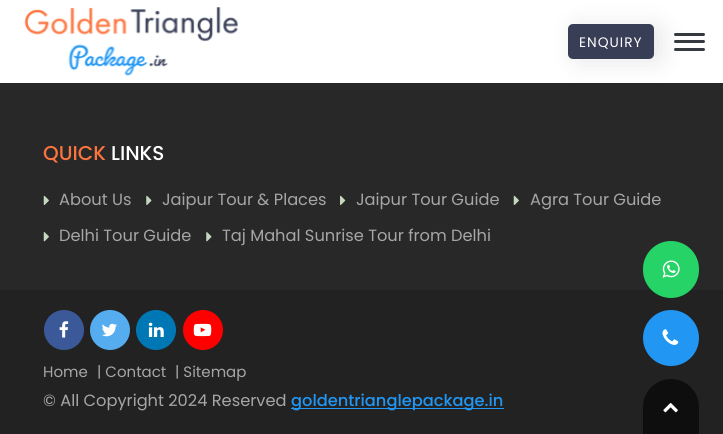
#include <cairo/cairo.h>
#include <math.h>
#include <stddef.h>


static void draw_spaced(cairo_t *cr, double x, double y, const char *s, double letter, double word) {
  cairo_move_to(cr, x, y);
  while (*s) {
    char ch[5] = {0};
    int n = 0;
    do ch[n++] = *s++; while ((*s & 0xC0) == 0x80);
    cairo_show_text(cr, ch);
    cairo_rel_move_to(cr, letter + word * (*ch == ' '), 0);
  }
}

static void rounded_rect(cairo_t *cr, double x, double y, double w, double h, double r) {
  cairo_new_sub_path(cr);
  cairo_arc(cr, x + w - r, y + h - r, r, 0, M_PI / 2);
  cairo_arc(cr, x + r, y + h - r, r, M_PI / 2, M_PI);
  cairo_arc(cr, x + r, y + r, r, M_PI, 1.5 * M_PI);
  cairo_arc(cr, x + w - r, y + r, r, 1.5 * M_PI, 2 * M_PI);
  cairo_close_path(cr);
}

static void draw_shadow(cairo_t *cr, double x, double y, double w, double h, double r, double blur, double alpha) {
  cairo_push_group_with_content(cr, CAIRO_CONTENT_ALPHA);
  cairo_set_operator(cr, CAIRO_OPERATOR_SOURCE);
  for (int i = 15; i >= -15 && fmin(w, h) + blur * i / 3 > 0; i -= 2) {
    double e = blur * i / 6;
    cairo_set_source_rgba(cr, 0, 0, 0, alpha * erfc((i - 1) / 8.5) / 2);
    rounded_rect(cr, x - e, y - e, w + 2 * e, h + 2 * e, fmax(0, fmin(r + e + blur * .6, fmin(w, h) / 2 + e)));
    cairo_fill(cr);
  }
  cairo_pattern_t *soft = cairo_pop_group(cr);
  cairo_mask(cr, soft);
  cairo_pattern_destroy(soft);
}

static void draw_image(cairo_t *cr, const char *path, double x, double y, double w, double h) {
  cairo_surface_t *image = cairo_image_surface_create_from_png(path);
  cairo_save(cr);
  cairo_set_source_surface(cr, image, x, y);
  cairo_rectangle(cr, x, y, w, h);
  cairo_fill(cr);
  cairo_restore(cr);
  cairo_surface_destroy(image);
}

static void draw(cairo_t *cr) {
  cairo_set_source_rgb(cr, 40 / 255.0, 40 / 255.0, 40 / 255.0);
  cairo_paint(cr);
  cairo_set_source_rgb(cr, 1, 1, 1);
  cairo_rectangle(cr, 0, 0, 723, 83);
  cairo_fill(cr);
  draw_image(cr, "images/1.png", 24, 7, 215, 69);
  cairo_set_source_rgb(cr, 0, 0, 0);
  draw_shadow(cr, 575, 26, 86, 35, 5, 12.5, 0.1);
  cairo_set_source_rgb(cr, 56 / 255.0, 62 / 255.0, 86 / 255.0);
  rounded_rect(cr, 568, 24, 86, 35, 5);
  cairo_fill(cr);
  cairo_set_source_rgb(cr, 52 / 255.0, 58 / 255.0, 64 / 255.0);
  rounded_rect(cr, 674, 33, 31, 3, 1.5);
  cairo_fill(cr);
  rounded_rect(cr, 674, 40, 31, 3, 1.5);
  cairo_fill(cr);
  rounded_rect(cr, 674, 48, 31, 3, 1.5);
  cairo_fill(cr);
  draw_image(cr, "images/2.png", 43, 195, 6, 10);
  draw_image(cr, "images/3.png", 146, 195, 6, 10);
  draw_image(cr, "images/4.png", 340, 195, 6, 10);
  draw_image(cr, "images/2.png", 513, 195, 6, 10);
  draw_image(cr, "images/5.png", 43, 232, 6, 10);
  draw_image(cr, "images/6.png", 206, 232, 6, 10);
  cairo_set_source_rgb(cr, 34 / 255.0, 34 / 255.0, 34 / 255.0);
  cairo_rectangle(cr, 0, 290, 723, 144);
  cairo_fill(cr);
  cairo_set_source_rgb(cr, 37 / 255.0, 211 / 255.0, 102 / 255.0);
  rounded_rect(cr, 643, 241, 56, 57, 28);
  cairo_fill(cr);
  draw_image(cr, "images/7.png", 662, 260, 18, 18);
  cairo_set_source_rgb(cr, 33 / 255.0, 150 / 255.0, 243 / 255.0);
  cairo_arc(cr, 671, 338, 28, 0, 2 * M_PI);
  cairo_fill(cr);
  draw_image(cr, "images/8.png", 662, 329, 17, 16);
  cairo_set_source_rgb(cr, 59 / 255.0, 89 / 255.0, 153 / 255.0);
  cairo_arc(cr, 64, 330, 20, 0, 2 * M_PI);
  cairo_fill(cr);
  draw_image(cr, "images/9.png", 59, 321, 10, 17);
  cairo_set_source_rgb(cr, 85 / 255.0, 172 / 255.0, 238 / 255.0);
  cairo_arc(cr, 110, 330, 20, 0, 2 * M_PI);
  cairo_fill(cr);
  draw_image(cr, "images/10.png", 102, 323, 15, 14);
  cairo_set_source_rgb(cr, 0, 119 / 255.0, 181 / 255.0);
  cairo_arc(cr, 156, 330, 20, 0, 2 * M_PI);
  cairo_fill(cr);
  draw_image(cr, "images/11.png", 148, 322, 16, 15);
  cairo_set_source_rgb(cr, 1, 0, 0);
  cairo_arc(cr, 203, 330, 20, 0, 2 * M_PI);
  cairo_fill(cr);
  draw_image(cr, "images/12.png", 193, 323, 19, 14);
  cairo_set_source_rgb(cr, 33 / 255.0, 150 / 255.0, 243 / 255.0);
  cairo_rectangle(cr, 291, 408, 213, 1);
  cairo_fill(cr);
  cairo_set_source_rgb(cr, 14 / 255.0, 14 / 255.0, 14 / 255.0);
  cairo_new_path(cr);
  cairo_move_to(cr, 671, 379);
  cairo_curve_to(cr, 686.5, 379, 699, 391.5, 699, 407);
  cairo_line_to(cr, 699, 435);
  cairo_line_to(cr, 643, 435);
  cairo_line_to(cr, 643, 407);
  cairo_curve_to(cr, 643, 391.5, 655.5, 379, 671, 379);
  cairo_close_path(cr);
  cairo_fill(cr);
  draw_image(cr, "images/13.png", 663, 403, 15, 10);
  cairo_select_font_face(cr, "Poppins", CAIRO_FONT_SLANT_NORMAL, CAIRO_FONT_WEIGHT_NORMAL);
  cairo_set_font_size(cr, 13.75);
  cairo_set_source_rgb(cr, 1, 1, 1);
  draw_spaced(cr, 579, 47, "ENQUIRY", 1, 0);
  cairo_select_font_face(cr, "Poppins Medium", CAIRO_FONT_SLANT_NORMAL, CAIRO_FONT_WEIGHT_NORMAL);
  cairo_set_font_size(cr, 20);
  cairo_set_source_rgb(cr, 251 / 255.0, 116 / 255.0, 62 / 255.0);
  cairo_move_to(cr, 43, 160);
  cairo_show_text(cr, "QUICK");
  cairo_set_source_rgb(cr, 1, 1, 1);
  cairo_move_to(cr, 111, 160);
  cairo_show_text(cr, "LINKS");
  cairo_select_font_face(cr, "Poppins", CAIRO_FONT_SLANT_NORMAL, CAIRO_FONT_WEIGHT_NORMAL);
  cairo_set_font_size(cr, 16.25);
  cairo_set_source_rgb(cr, 166 / 255.0, 166 / 255.0, 166 / 255.0);
  cairo_move_to(cr, 59, 205);
  cairo_show_text(cr, "About Us");
  cairo_move_to(cr, 162, 205);
  cairo_show_text(cr, "Jaipur Tour & Places");
  cairo_move_to(cr, 356, 205);
  cairo_show_text(cr, "Jaipur Tour Guide");
  cairo_move_to(cr, 530, 205);
  cairo_show_text(cr, "Agra Tour Guide");
  cairo_move_to(cr, 59, 241);
  cairo_show_text(cr, "Delhi Tour Guide");
  cairo_move_to(cr, 222, 241);
  cairo_show_text(cr, "Taj Mahal Sunrise Tour from Delhi");
  cairo_set_font_size(cr, 15);
  cairo_move_to(cr, 43, 377);
  cairo_show_text(cr, "Home");
  cairo_move_to(cr, 97, 377);
  cairo_show_text(cr, "| Contact");
  cairo_move_to(cr, 175, 377);
  cairo_show_text(cr, "| Sitemap");
  cairo_set_font_size(cr, 16.25);
  cairo_move_to(cr, 43, 406);
  cairo_show_text(cr, "© All Copyright 2024 Reserved");
  cairo_select_font_face(cr, "Poppins Medium", CAIRO_FONT_SLANT_NORMAL, CAIRO_FONT_WEIGHT_NORMAL);
  cairo_set_source_rgb(cr, 33 / 255.0, 150 / 255.0, 243 / 255.0);
  cairo_move_to(cr, 291, 406);
  cairo_show_text(cr, "goldentrianglepackage.in");
}

int main(void) {
  cairo_surface_t *surface = cairo_image_surface_create(CAIRO_FORMAT_RGB24, 723, 434);
  cairo_t *cr = cairo_create(surface);
  cairo_font_options_t *options = cairo_font_options_create();
  cairo_font_options_set_hint_metrics(options, CAIRO_HINT_METRICS_OFF);
  cairo_font_options_set_hint_style(options, CAIRO_HINT_STYLE_NONE);
  cairo_set_font_options(cr, options);
  cairo_set_miter_limit(cr, 4);
  draw(cr);
  cairo_surface_write_to_png(surface, "out.png");
  cairo_font_options_destroy(options);
  cairo_destroy(cr);
  cairo_surface_destroy(surface);
  return 0;
}
